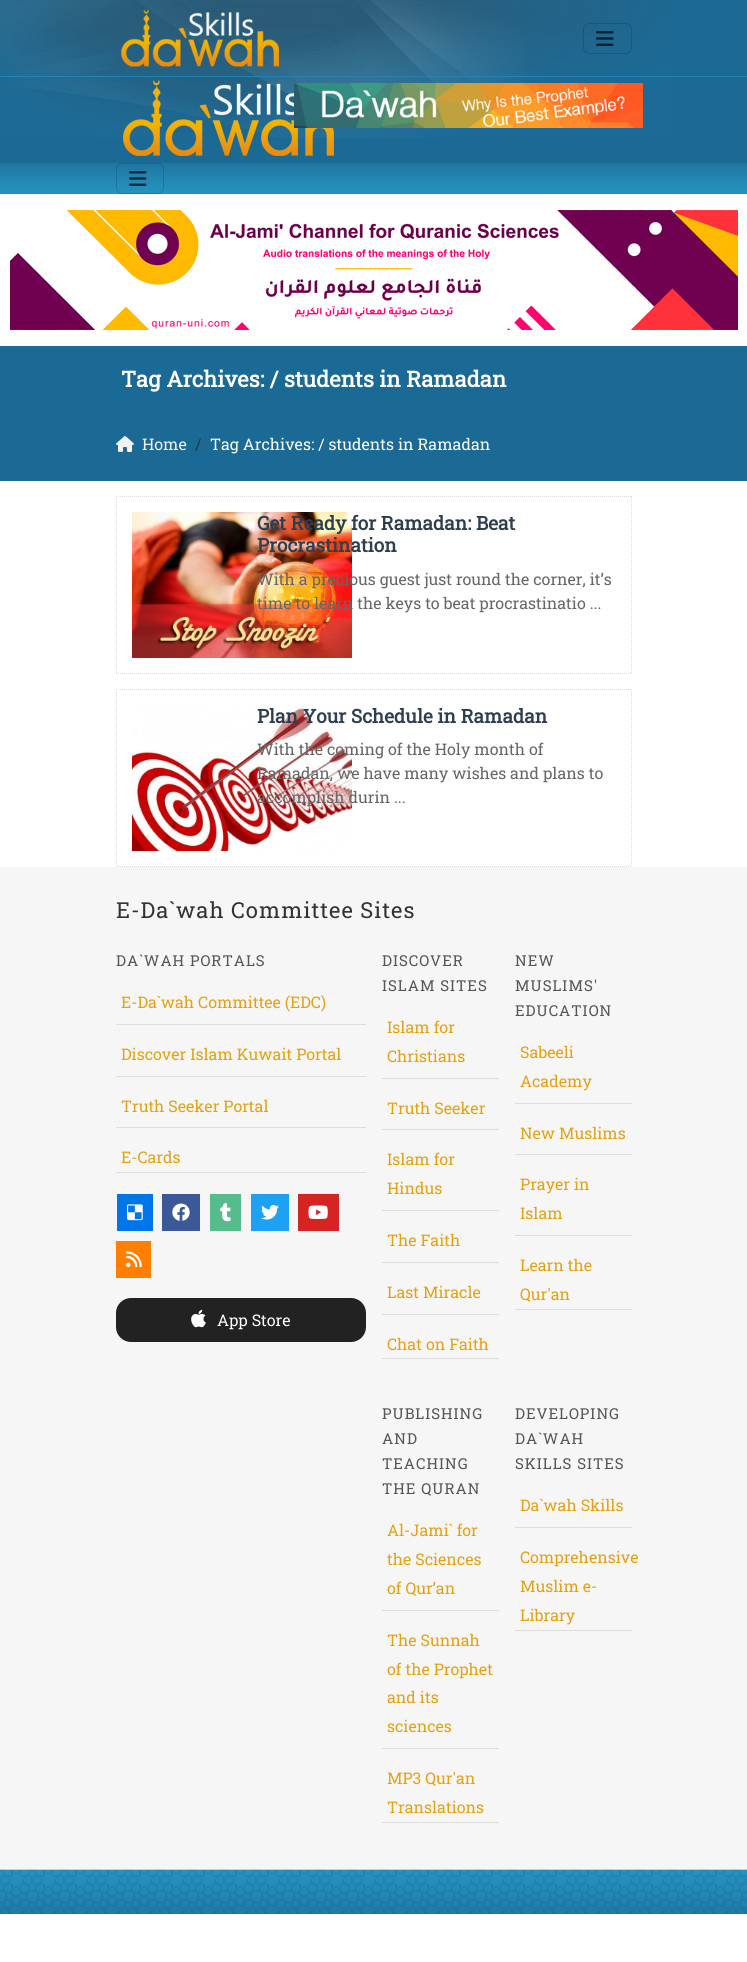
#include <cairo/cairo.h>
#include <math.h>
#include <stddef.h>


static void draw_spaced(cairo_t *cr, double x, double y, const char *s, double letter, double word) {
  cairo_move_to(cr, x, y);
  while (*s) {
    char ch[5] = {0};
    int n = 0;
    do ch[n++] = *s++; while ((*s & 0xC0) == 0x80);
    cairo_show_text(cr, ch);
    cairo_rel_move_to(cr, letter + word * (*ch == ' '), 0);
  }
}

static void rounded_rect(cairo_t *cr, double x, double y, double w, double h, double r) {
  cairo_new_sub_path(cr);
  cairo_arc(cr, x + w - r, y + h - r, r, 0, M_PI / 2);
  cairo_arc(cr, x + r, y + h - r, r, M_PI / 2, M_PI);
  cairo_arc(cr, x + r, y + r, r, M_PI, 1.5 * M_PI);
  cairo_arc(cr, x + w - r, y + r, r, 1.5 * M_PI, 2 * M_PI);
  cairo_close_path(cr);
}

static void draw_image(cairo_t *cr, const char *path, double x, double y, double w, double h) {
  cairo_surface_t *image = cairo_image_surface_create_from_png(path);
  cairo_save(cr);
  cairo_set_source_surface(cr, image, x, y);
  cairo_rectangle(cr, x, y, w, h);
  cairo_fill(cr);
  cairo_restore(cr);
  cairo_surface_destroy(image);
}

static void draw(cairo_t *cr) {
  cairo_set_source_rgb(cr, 1, 1, 1);
  cairo_paint(cr);
  cairo_set_source_rgb(cr, 27 / 255.0, 106 / 255.0, 149 / 255.0);
  cairo_rectangle(cr, 0, 0, 747, 163);
  cairo_fill(cr);
  draw_image(cr, "images/1.png", 0, 0, 674, 138);
  cairo_set_source_rgb(cr, 35 / 255.0, 132 / 255.0, 176 / 255.0);
  cairo_rectangle(cr, 0, 76, 747, 1);
  cairo_fill(cr);
  draw_image(cr, "images/2.png", 121, 9, 158, 58);
  rounded_rect(cr, 583.5, 23.5, 48, 30, 5.5);
  cairo_set_source_rgba(cr, 0, 0, 0, 0.15);
  cairo_set_line_width(cr, 1);
  cairo_stroke(cr);
  draw_image(cr, "images/3.png", 596, 31, 18, 15);
  draw_image(cr, "images/4.png", 123, 80, 211, 76);
  draw_image(cr, "images/5.png", 294, 83, 349, 45);
  draw_image(cr, "images/6.png", 0, 163, 747, 31);
  rounded_rect(cr, 116.5, 163.5, 47, 30, 5.5);
  cairo_stroke(cr);
  draw_image(cr, "images/7.png", 129, 171, 18, 15);
  draw_image(cr, "images/8.png", 10, 210, 728, 120);
  cairo_set_source_rgb(cr, 27 / 255.0, 106 / 255.0, 149 / 255.0);
  cairo_rectangle(cr, 0, 346, 747, 135);
  cairo_fill(cr);
  draw_image(cr, "images/9.png", 116, 436, 18, 16);
  cairo_new_path(cr);
  cairo_move_to(cr, 116, 496.5);
  cairo_line_to(cr, 632, 496.5);
  cairo_set_source_rgb(cr, 221 / 255.0, 221 / 255.0, 221 / 255.0);
  cairo_set_dash(cr, (double[]){1, 1}, 2, 0);
  cairo_stroke(cr);
  cairo_new_path(cr);
  cairo_move_to(cr, 631.5, 496);
  cairo_line_to(cr, 631.5, 674);
  cairo_stroke(cr);
  cairo_new_path(cr);
  cairo_move_to(cr, 116, 673.5);
  cairo_line_to(cr, 632, 673.5);
  cairo_stroke(cr);
  cairo_new_path(cr);
  cairo_move_to(cr, 116.5, 496);
  cairo_line_to(cr, 116.5, 674);
  cairo_stroke(cr);
  draw_image(cr, "images/10.png", 132, 512, 220, 146);
  cairo_new_path(cr);
  cairo_move_to(cr, 116, 689.5);
  cairo_line_to(cr, 632, 689.5);
  cairo_stroke(cr);
  cairo_new_path(cr);
  cairo_move_to(cr, 631.5, 689);
  cairo_line_to(cr, 631.5, 867);
  cairo_stroke(cr);
  cairo_new_path(cr);
  cairo_move_to(cr, 116, 866.5);
  cairo_line_to(cr, 632, 866.5);
  cairo_stroke(cr);
  cairo_new_path(cr);
  cairo_move_to(cr, 116.5, 689);
  cairo_line_to(cr, 116.5, 867);
  cairo_stroke(cr);
  draw_image(cr, "images/11.png", 132, 705, 220, 146);
  cairo_set_source_rgb(cr, 246 / 255.0, 246 / 255.0, 246 / 255.0);
  cairo_rectangle(cr, 0, 867, 747, 1002);
  cairo_fill(cr);
  cairo_set_source_rgb(cr, 221 / 255.0, 221 / 255.0, 221 / 255.0);
  cairo_rectangle(cr, 116, 1024, 250, 1);
  cairo_fill(cr);
  cairo_rectangle(cr, 116, 1076, 250, 1);
  cairo_fill(cr);
  cairo_rectangle(cr, 116, 1127, 250, 1);
  cairo_fill(cr);
  cairo_rectangle(cr, 116, 1172, 250, 1);
  cairo_fill(cr);
  cairo_set_source_rgb(cr, 0, 118 / 255.0, 232 / 255.0);
  cairo_rectangle(cr, 117, 1194, 36, 37);
  cairo_fill(cr);
  draw_image(cr, "images/12.png", 127, 1204, 16, 17);
  cairo_set_source_rgb(cr, 59 / 255.0, 89 / 255.0, 152 / 255.0);
  cairo_rectangle(cr, 162, 1194, 38, 37);
  cairo_fill(cr);
  draw_image(cr, "images/13.png", 172, 1203, 18, 18);
  cairo_set_source_rgb(cr, 86 / 255.0, 188 / 255.0, 139 / 255.0);
  cairo_rectangle(cr, 210, 1194, 31, 37);
  cairo_fill(cr);
  draw_image(cr, "images/14.png", 220, 1203, 11, 19);
  cairo_set_source_rgb(cr, 29 / 255.0, 161 / 255.0, 242 / 255.0);
  cairo_rectangle(cr, 251, 1194, 38, 37);
  cairo_fill(cr);
  draw_image(cr, "images/15.png", 261, 1205, 18, 15);
  cairo_set_source_rgb(cr, 214 / 255.0, 36 / 255.0, 34 / 255.0);
  cairo_rectangle(cr, 298, 1194, 41, 37);
  cairo_fill(cr);
  draw_image(cr, "images/16.png", 308, 1205, 20, 14);
  cairo_set_source_rgb(cr, 1, 128 / 255.0, 0);
  cairo_rectangle(cr, 116, 1241, 35, 37);
  cairo_fill(cr);
  draw_image(cr, "images/17.png", 126, 1251, 16, 17);
  cairo_set_source_rgb(cr, 34 / 255.0, 34 / 255.0, 34 / 255.0);
  rounded_rect(cr, 116, 1298, 250, 44, 15);
  cairo_fill(cr);
  draw_image(cr, "images/18.png", 191, 1309, 15, 19);
  cairo_set_source_rgb(cr, 221 / 255.0, 221 / 255.0, 221 / 255.0);
  cairo_rectangle(cr, 382, 1078, 117, 1);
  cairo_fill(cr);
  cairo_rectangle(cr, 382, 1129, 117, 1);
  cairo_fill(cr);
  cairo_rectangle(cr, 382, 1210, 117, 1);
  cairo_fill(cr);
  cairo_rectangle(cr, 382, 1262, 117, 1);
  cairo_fill(cr);
  cairo_rectangle(cr, 382, 1314, 117, 1);
  cairo_fill(cr);
  cairo_rectangle(cr, 382, 1358, 117, 1);
  cairo_fill(cr);
  cairo_rectangle(cr, 515, 1103, 117, 1);
  cairo_fill(cr);
  cairo_rectangle(cr, 515, 1154, 117, 1);
  cairo_fill(cr);
  cairo_rectangle(cr, 515, 1235, 117, 1);
  cairo_fill(cr);
  cairo_rectangle(cr, 515, 1309, 117, 1);
  cairo_fill(cr);
  cairo_rectangle(cr, 382, 1610, 117, 1);
  cairo_fill(cr);
  cairo_rectangle(cr, 382, 1748, 117, 1);
  cairo_fill(cr);
  cairo_rectangle(cr, 382, 1822, 117, 1);
  cairo_fill(cr);
  cairo_rectangle(cr, 515, 1527, 117, 1);
  cairo_fill(cr);
  cairo_rectangle(cr, 515, 1630, 117, 1);
  cairo_fill(cr);
  draw_image(cr, "images/19.png", 0, 1870, 747, 44);
  cairo_set_source_rgb(cr, 204 / 255.0, 204 / 255.0, 204 / 255.0);
  cairo_rectangle(cr, 0, 1869, 747, 1);
  cairo_fill(cr);
  cairo_select_font_face(cr, "Roboto Slab", CAIRO_FONT_SLANT_NORMAL, CAIRO_FONT_WEIGHT_BOLD);
  cairo_set_font_size(cr, 22);
  cairo_set_source_rgb(cr, 1, 1, 1);
  cairo_move_to(cr, 121, 387);
  cairo_show_text(cr, "Tag Archives: / students in Ramadan");
  cairo_select_font_face(cr, "Roboto Slab", CAIRO_FONT_SLANT_NORMAL, CAIRO_FONT_WEIGHT_NORMAL);
  cairo_set_font_size(cr, 16);
  cairo_set_source_rgb(cr, 242 / 255.0, 242 / 255.0, 242 / 255.0);
  cairo_move_to(cr, 142, 450);
  cairo_show_text(cr, "Home");
  cairo_set_source_rgb(cr, 32 / 255.0, 54 / 255.0, 68 / 255.0);
  cairo_move_to(cr, 195, 450);
  cairo_show_text(cr, "/");
  cairo_set_source_rgb(cr, 1, 1, 1);
  cairo_move_to(cr, 210, 450);
  cairo_show_text(cr, "Tag Archives: / students in Ramadan");
  cairo_select_font_face(cr, "Roboto Slab", CAIRO_FONT_SLANT_NORMAL, CAIRO_FONT_WEIGHT_BOLD);
  cairo_set_font_size(cr, 19);
  cairo_set_source_rgb(cr, 44 / 255.0, 62 / 255.0, 80 / 255.0);
  cairo_move_to(cr, 257, 530);
  cairo_show_text(cr, "Get Ready for Ramadan: Beat");
  cairo_move_to(cr, 257, 552);
  cairo_show_text(cr, "Procrastination");
  cairo_select_font_face(cr, "Roboto Slab", CAIRO_FONT_SLANT_NORMAL, CAIRO_FONT_WEIGHT_NORMAL);
  cairo_set_font_size(cr, 16);
  cairo_set_source_rgb(cr, 102 / 255.0, 102 / 255.0, 102 / 255.0);
  cairo_move_to(cr, 257, 585);
  cairo_show_text(cr, "With a precious guest just round the corner, it’s");
  cairo_move_to(cr, 257, 609);
  cairo_show_text(cr, "time to learn the keys to beat procrastinatio ...");
  cairo_select_font_face(cr, "Roboto Slab", CAIRO_FONT_SLANT_NORMAL, CAIRO_FONT_WEIGHT_BOLD);
  cairo_set_font_size(cr, 19);
  cairo_set_source_rgb(cr, 44 / 255.0, 62 / 255.0, 80 / 255.0);
  cairo_move_to(cr, 257, 723);
  cairo_show_text(cr, "Plan Your Schedule in Ramadan");
  cairo_select_font_face(cr, "Roboto Slab", CAIRO_FONT_SLANT_NORMAL, CAIRO_FONT_WEIGHT_NORMAL);
  cairo_set_font_size(cr, 16);
  cairo_set_source_rgb(cr, 102 / 255.0, 102 / 255.0, 102 / 255.0);
  cairo_move_to(cr, 257, 755);
  cairo_show_text(cr, "With the coming of the Holy month of");
  cairo_move_to(cr, 257, 779);
  cairo_show_text(cr, "Ramadan, we have many wishes and plans to");
  cairo_move_to(cr, 257, 803);
  cairo_show_text(cr, "accomplish durin ...");
  cairo_set_font_size(cr, 22);
  cairo_set_source_rgb(cr, 51 / 255.0, 51 / 255.0, 51 / 255.0);
  draw_spaced(cr, 116, 918, "E-Da`wah Committee Sites", 1, 0);
  cairo_set_font_size(cr, 15);
  cairo_set_source_rgb(cr, 85 / 255.0, 85 / 255.0, 85 / 255.0);
  draw_spaced(cr, 116, 966, "DA`WAH PORTALS", 1, 0);
  cairo_set_font_size(cr, 16);
  cairo_set_source_rgb(cr, 229 / 255.0, 161 / 255.0, 17 / 255.0);
  cairo_move_to(cr, 121, 1008);
  cairo_show_text(cr, "E-Da`wah Committee (EDC)");
  cairo_move_to(cr, 121, 1060);
  cairo_show_text(cr, "Discover Islam Kuwait Portal");
  cairo_move_to(cr, 121, 1112);
  cairo_show_text(cr, "Truth Seeker Portal");
  cairo_move_to(cr, 121, 1163);
  cairo_show_text(cr, "E-Cards");
  cairo_set_source_rgb(cr, 1, 1, 1);
  cairo_move_to(cr, 217, 1326);
  cairo_show_text(cr, "App Store");
  cairo_set_font_size(cr, 15);
  cairo_set_source_rgb(cr, 85 / 255.0, 85 / 255.0, 85 / 255.0);
  draw_spaced(cr, 382, 966, "DISCOVER", 1, 0);
  draw_spaced(cr, 382, 991, "ISLAM SITES", 1, 0);
  cairo_set_font_size(cr, 16);
  cairo_set_source_rgb(cr, 229 / 255.0, 161 / 255.0, 17 / 255.0);
  cairo_move_to(cr, 387, 1033);
  cairo_show_text(cr, "Islam for");
  cairo_move_to(cr, 387, 1062);
  cairo_show_text(cr, "Christians");
  cairo_move_to(cr, 387, 1114);
  cairo_show_text(cr, "Truth Seeker");
  cairo_move_to(cr, 387, 1165);
  cairo_show_text(cr, "Islam for");
  cairo_move_to(cr, 387, 1194);
  cairo_show_text(cr, "Hindus");
  cairo_move_to(cr, 387, 1246);
  cairo_show_text(cr, "The Faith");
  cairo_move_to(cr, 387, 1298);
  cairo_show_text(cr, "Last Miracle");
  cairo_move_to(cr, 387, 1350);
  cairo_show_text(cr, "Chat on Faith");
  cairo_set_font_size(cr, 15);
  cairo_set_source_rgb(cr, 85 / 255.0, 85 / 255.0, 85 / 255.0);
  draw_spaced(cr, 515, 966, "NEW", 1, 0);
  draw_spaced(cr, 515, 991, "MUSLIMS'", 1, 0);
  draw_spaced(cr, 515, 1016, "EDUCATION", 1, 0);
  cairo_set_font_size(cr, 16);
  cairo_set_source_rgb(cr, 229 / 255.0, 161 / 255.0, 17 / 255.0);
  cairo_move_to(cr, 520, 1058);
  cairo_show_text(cr, "Sabeeli");
  cairo_move_to(cr, 520, 1087);
  cairo_show_text(cr, "Academy");
  cairo_move_to(cr, 520, 1139);
  cairo_show_text(cr, "New Muslims");
  cairo_move_to(cr, 520, 1190);
  cairo_show_text(cr, "Prayer in");
  cairo_move_to(cr, 520, 1219);
  cairo_show_text(cr, "Islam");
  cairo_move_to(cr, 520, 1271);
  cairo_show_text(cr, "Learn the");
  cairo_move_to(cr, 520, 1300);
  cairo_show_text(cr, "Qur'an");
  cairo_set_font_size(cr, 15);
  cairo_set_source_rgb(cr, 85 / 255.0, 85 / 255.0, 85 / 255.0);
  draw_spaced(cr, 382, 1419, "PUBLISHING", 1, 0);
  draw_spaced(cr, 382, 1444, "AND", 1, 0);
  draw_spaced(cr, 382, 1469, "TEACHING", 1, 0);
  draw_spaced(cr, 382, 1494, "THE QURAN", 1, 0);
  cairo_set_font_size(cr, 16);
  cairo_set_source_rgb(cr, 229 / 255.0, 161 / 255.0, 17 / 255.0);
  cairo_move_to(cr, 387, 1536);
  cairo_show_text(cr, "Al-Jami` for");
  cairo_move_to(cr, 387, 1565);
  cairo_show_text(cr, "the Sciences");
  cairo_move_to(cr, 387, 1594);
  cairo_show_text(cr, "of Qur’an");
  cairo_move_to(cr, 387, 1646);
  cairo_show_text(cr, "The Sunnah");
  cairo_move_to(cr, 387, 1675);
  cairo_show_text(cr, "of the Prophet");
  cairo_move_to(cr, 387, 1703);
  cairo_show_text(cr, "and its");
  cairo_move_to(cr, 387, 1732);
  cairo_show_text(cr, "sciences");
  cairo_move_to(cr, 387, 1784);
  cairo_show_text(cr, "MP3 Qur'an");
  cairo_move_to(cr, 387, 1813);
  cairo_show_text(cr, "Translations");
  cairo_set_font_size(cr, 15);
  cairo_set_source_rgb(cr, 85 / 255.0, 85 / 255.0, 85 / 255.0);
  draw_spaced(cr, 515, 1419, "DEVELOPING", 1, 0);
  draw_spaced(cr, 515, 1444, "DA`WAH", 1, 0);
  draw_spaced(cr, 515, 1469, "SKILLS SITES", 1, 0);
  cairo_set_font_size(cr, 16);
  cairo_set_source_rgb(cr, 229 / 255.0, 161 / 255.0, 17 / 255.0);
  cairo_move_to(cr, 520, 1511);
  cairo_show_text(cr, "Da`wah Skills");
  cairo_move_to(cr, 520, 1563);
  cairo_show_text(cr, "Comprehensive");
  cairo_move_to(cr, 520, 1592);
  cairo_show_text(cr, "Muslim e-");
  cairo_move_to(cr, 520, 1621);
  cairo_show_text(cr, "Library");
}

int main(void) {
  cairo_surface_t *surface = cairo_image_surface_create(CAIRO_FORMAT_RGB24, 747, 1962);
  cairo_t *cr = cairo_create(surface);
  cairo_font_options_t *options = cairo_font_options_create();
  cairo_font_options_set_hint_metrics(options, CAIRO_HINT_METRICS_OFF);
  cairo_font_options_set_hint_style(options, CAIRO_HINT_STYLE_NONE);
  cairo_set_font_options(cr, options);
  cairo_set_miter_limit(cr, 4);
  draw(cr);
  cairo_surface_write_to_png(surface, "out.png");
  cairo_font_options_destroy(options);
  cairo_destroy(cr);
  cairo_surface_destroy(surface);
  return 0;
}
